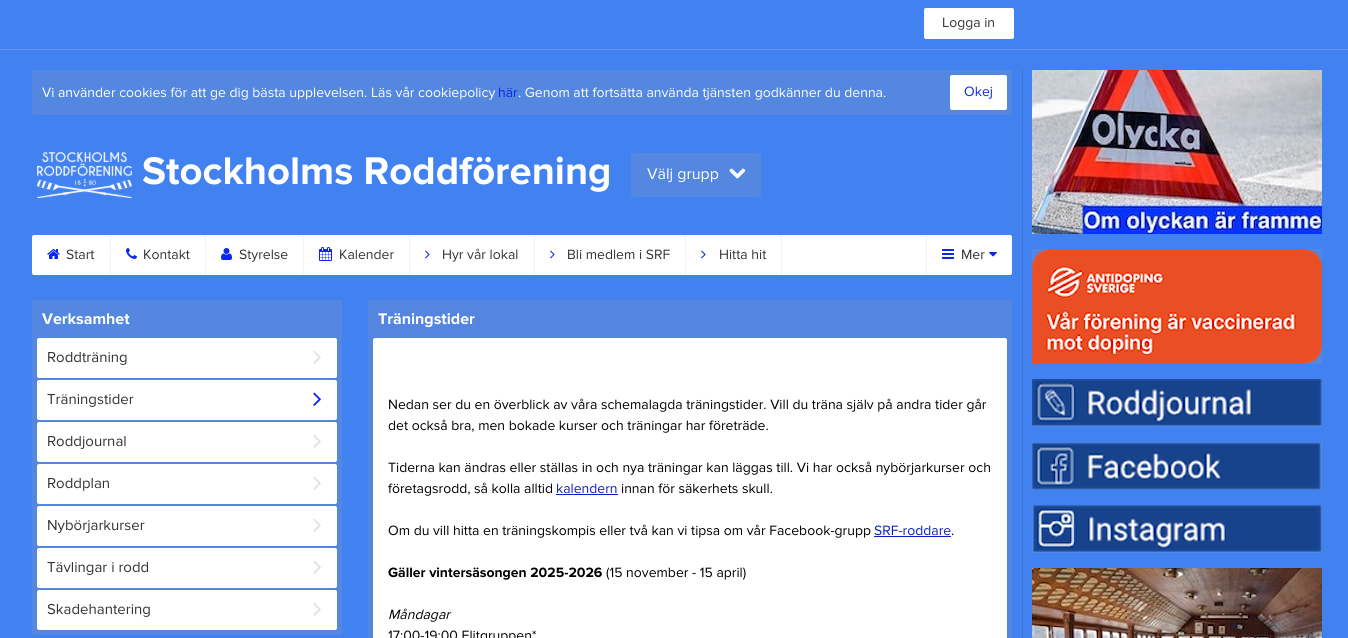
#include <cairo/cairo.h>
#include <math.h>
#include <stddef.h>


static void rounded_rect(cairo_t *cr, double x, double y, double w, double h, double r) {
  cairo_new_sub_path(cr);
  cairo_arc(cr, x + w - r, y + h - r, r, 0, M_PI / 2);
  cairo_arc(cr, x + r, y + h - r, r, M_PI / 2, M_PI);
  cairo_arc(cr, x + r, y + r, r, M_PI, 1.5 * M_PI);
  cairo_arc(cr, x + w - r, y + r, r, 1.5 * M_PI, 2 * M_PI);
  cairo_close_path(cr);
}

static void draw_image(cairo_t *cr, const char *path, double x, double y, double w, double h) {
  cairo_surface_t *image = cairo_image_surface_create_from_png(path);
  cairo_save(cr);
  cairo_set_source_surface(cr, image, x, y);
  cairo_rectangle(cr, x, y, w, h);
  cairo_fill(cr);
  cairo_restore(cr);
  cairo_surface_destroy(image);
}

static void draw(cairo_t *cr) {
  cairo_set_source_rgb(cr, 65 / 255.0, 129 / 255.0, 240 / 255.0);
  cairo_paint(cr);
  cairo_set_source_rgb(cr, 94 / 255.0, 148 / 255.0, 242 / 255.0);
  cairo_rectangle(cr, 0, 49, 1348, 1);
  cairo_fill(cr);
  cairo_set_source_rgb(cr, 1, 1, 1);
  rounded_rect(cr, 924, 8, 90, 31, 2);
  cairo_fill(cr);
  cairo_set_source_rgb(cr, 84 / 255.0, 135 / 255.0, 224 / 255.0);
  rounded_rect(cr, 32, 70, 980, 45, 2);
  cairo_fill(cr);
  cairo_set_source_rgb(cr, 1, 1, 1);
  rounded_rect(cr, 950, 75, 57, 35, 2);
  cairo_fill(cr);
  draw_image(cr, "images/1.png", 37, 152, 95, 46);
  cairo_set_source_rgb(cr, 84 / 255.0, 135 / 255.0, 224 / 255.0);
  rounded_rect(cr, 631, 153, 130, 44, 2);
  cairo_fill(cr);
  draw_image(cr, "images/2.png", 729, 168, 17, 11);
  cairo_set_source_rgb(cr, 1, 1, 1);
  rounded_rect(cr, 32, 235, 980, 40, 2);
  cairo_fill(cr);
  cairo_set_source_rgb(cr, 243 / 255.0, 243 / 255.0, 243 / 255.0);
  cairo_rectangle(cr, 110, 235, 1, 40);
  cairo_fill(cr);
  draw_image(cr, "images/3.png", 47, 249, 13, 10);
  cairo_rectangle(cr, 205, 235, 1, 40);
  cairo_fill(cr);
  draw_image(cr, "images/4.png", 126, 248, 11, 11);
  cairo_rectangle(cr, 303, 235, 1, 40);
  cairo_fill(cr);
  draw_image(cr, "images/5.png", 221, 248, 11, 12);
  cairo_rectangle(cr, 409, 235, 1, 40);
  cairo_fill(cr);
  draw_image(cr, "images/6.png", 319, 247, 13, 14);
  cairo_rectangle(cr, 534, 235, 1, 40);
  cairo_fill(cr);
  draw_image(cr, "images/7.png", 425, 250, 5, 9);
  cairo_rectangle(cr, 685, 235, 1, 40);
  cairo_fill(cr);
  draw_image(cr, "images/7.png", 550, 250, 5, 9);
  cairo_rectangle(cr, 781, 235, 1, 40);
  cairo_fill(cr);
  draw_image(cr, "images/7.png", 701, 250, 5, 9);
  cairo_rectangle(cr, 926, 235, 1, 40);
  cairo_fill(cr);
  draw_image(cr, "images/8.png", 942, 249, 12, 10);
  draw_image(cr, "images/9.png", 989, 252, 8, 5);
  cairo_set_source_rgb(cr, 84 / 255.0, 135 / 255.0, 224 / 255.0);
  rounded_rect(cr, 32, 300, 310, 335, 2);
  cairo_fill(cr);
  cairo_set_source_rgb(cr, 1, 1, 1);
  rounded_rect(cr, 37, 338, 300, 40, 2);
  cairo_fill(cr);
  draw_image(cr, "images/10.png", 313, 350, 8, 14);
  rounded_rect(cr, 37, 380, 300, 40, 2);
  cairo_fill(cr);
  draw_image(cr, "images/11.png", 313, 392, 8, 14);
  rounded_rect(cr, 37, 422, 300, 40, 2);
  cairo_fill(cr);
  draw_image(cr, "images/10.png", 313, 434, 8, 14);
  rounded_rect(cr, 37, 464, 300, 40, 2);
  cairo_fill(cr);
  draw_image(cr, "images/10.png", 313, 476, 8, 14);
  rounded_rect(cr, 37, 506, 300, 40, 2);
  cairo_fill(cr);
  draw_image(cr, "images/10.png", 313, 518, 8, 14);
  rounded_rect(cr, 37, 548, 300, 40, 2);
  cairo_fill(cr);
  draw_image(cr, "images/10.png", 313, 560, 8, 14);
  rounded_rect(cr, 37, 590, 300, 40, 2);
  cairo_fill(cr);
  draw_image(cr, "images/10.png", 313, 602, 8, 14);
  cairo_set_source_rgb(cr, 84 / 255.0, 134 / 255.0, 224 / 255.0);
  rounded_rect(cr, 368, 300, 644, 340, 2);
  cairo_fill(cr);
  cairo_set_source_rgb(cr, 1, 1, 1);
  rounded_rect(cr, 373, 338, 634, 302, 2);
  cairo_fill(cr);
  cairo_set_source_rgb(cr, 9 / 255.0, 31 / 255.0, 194 / 255.0);
  cairo_rectangle(cr, 556, 494, 62, 1);
  cairo_fill(cr);
  cairo_rectangle(cr, 874, 536, 77, 1);
  cairo_fill(cr);
  cairo_set_source_rgb(cr, 59 / 255.0, 116 / 255.0, 216 / 255.0);
  cairo_rectangle(cr, 1022, 70, 1, 568);
  cairo_fill(cr);
  draw_image(cr, "images/12.png", 1032, 70, 290, 164);
  cairo_set_source_rgb(cr, 84 / 255.0, 135 / 255.0, 224 / 255.0);
  cairo_rectangle(cr, 1032, 249, 290, 115);
  cairo_fill(cr);
  draw_image(cr, "images/13.png", 1032, 249, 290, 115);
  cairo_rectangle(cr, 1032, 379, 290, 48);
  cairo_fill(cr);
  draw_image(cr, "images/14.png", 1032, 379, 290, 47);
  cairo_rectangle(cr, 1032, 442, 290, 48);
  cairo_fill(cr);
  draw_image(cr, "images/15.png", 1032, 442, 289, 48);
  cairo_rectangle(cr, 1032, 505, 290, 48);
  cairo_fill(cr);
  draw_image(cr, "images/16.png", 1033, 505, 289, 47);
  draw_image(cr, "images/17.png", 1032, 568, 290, 70);
  cairo_select_font_face(cr, "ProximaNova", CAIRO_FONT_SLANT_NORMAL, CAIRO_FONT_WEIGHT_NORMAL);
  cairo_set_font_size(cr, 14);
  cairo_set_source_rgb(cr, 51 / 255.0, 51 / 255.0, 51 / 255.0);
  cairo_move_to(cr, 942, 27);
  cairo_show_text(cr, "Logga in");
  cairo_set_source_rgb(cr, 1, 1, 1);
  cairo_move_to(cr, 42, 97);
  cairo_show_text(cr, "Vi använder cookies för att ge dig bästa upplevelsen. Läs vår cookiepolicy");
  cairo_set_source_rgb(cr, 12 / 255.0, 38 / 255.0, 237 / 255.0);
  cairo_move_to(cr, 498, 97);
  cairo_show_text(cr, "här");
  cairo_set_source_rgb(cr, 1, 1, 1);
  cairo_move_to(cr, 518, 97);
  cairo_show_text(cr, ". Genom att fortsätta använda tjänsten godkänner du denna.");
  cairo_set_source_rgb(cr, 12 / 255.0, 38 / 255.0, 237 / 255.0);
  cairo_move_to(cr, 964, 96);
  cairo_show_text(cr, "Okej");
  cairo_select_font_face(cr, "ProximaNova", CAIRO_FONT_SLANT_NORMAL, CAIRO_FONT_WEIGHT_BOLD);
  cairo_set_font_size(cr, 40);
  cairo_set_source_rgb(cr, 1, 1, 1);
  cairo_move_to(cr, 142, 184);
  cairo_show_text(cr, "Stockholms Roddförening");
  cairo_select_font_face(cr, "ProximaNova", CAIRO_FONT_SLANT_NORMAL, CAIRO_FONT_WEIGHT_NORMAL);
  cairo_set_font_size(cr, 16);
  cairo_move_to(cr, 647, 179);
  cairo_show_text(cr, "Välj grupp");
  cairo_set_font_size(cr, 14);
  cairo_set_source_rgb(cr, 51 / 255.0, 51 / 255.0, 51 / 255.0);
  cairo_move_to(cr, 66, 259);
  cairo_show_text(cr, "Start");
  cairo_move_to(cr, 143, 259);
  cairo_show_text(cr, "Kontakt");
  cairo_move_to(cr, 239, 259);
  cairo_show_text(cr, "Styrelse");
  cairo_move_to(cr, 339, 259);
  cairo_show_text(cr, "Kalender");
  cairo_move_to(cr, 442, 259);
  cairo_show_text(cr, "Hyr vår lokal");
  cairo_move_to(cr, 567, 259);
  cairo_show_text(cr, "Bli medlem i SRF");
  cairo_move_to(cr, 719, 259);
  cairo_show_text(cr, "Hitta hit");
  cairo_move_to(cr, 961, 259);
  cairo_show_text(cr, "Mer");
  cairo_select_font_face(cr, "ProximaNova", CAIRO_FONT_SLANT_NORMAL, CAIRO_FONT_WEIGHT_BOLD);
  cairo_set_font_size(cr, 16);
  cairo_set_source_rgb(cr, 1, 1, 1);
  cairo_move_to(cr, 42, 324);
  cairo_show_text(cr, "Verksamhet");
  cairo_select_font_face(cr, "ProximaNova", CAIRO_FONT_SLANT_NORMAL, CAIRO_FONT_WEIGHT_NORMAL);
  cairo_set_font_size(cr, 15);
  cairo_set_source_rgb(cr, 51 / 255.0, 51 / 255.0, 51 / 255.0);
  cairo_move_to(cr, 47, 362);
  cairo_show_text(cr, "Roddträning");
  cairo_move_to(cr, 47, 404);
  cairo_show_text(cr, "Träningstider");
  cairo_move_to(cr, 47, 446);
  cairo_show_text(cr, "Roddjournal");
  cairo_move_to(cr, 47, 488);
  cairo_show_text(cr, "Roddplan");
  cairo_move_to(cr, 47, 530);
  cairo_show_text(cr, "Nybörjarkurser");
  cairo_move_to(cr, 47, 572);
  cairo_show_text(cr, "Tävlingar i rodd");
  cairo_move_to(cr, 47, 614);
  cairo_show_text(cr, "Skadehantering");
  cairo_select_font_face(cr, "ProximaNova", CAIRO_FONT_SLANT_NORMAL, CAIRO_FONT_WEIGHT_BOLD);
  cairo_set_font_size(cr, 16);
  cairo_set_source_rgb(cr, 1, 1, 1);
  cairo_move_to(cr, 378, 324);
  cairo_show_text(cr, "Träningstider");
  cairo_select_font_face(cr, "ProximaNova", CAIRO_FONT_SLANT_NORMAL, CAIRO_FONT_WEIGHT_NORMAL);
  cairo_set_font_size(cr, 14);
  cairo_set_source_rgb(cr, 0, 0, 0);
  cairo_move_to(cr, 388, 409);
  cairo_show_text(cr, "Nedan ser du en överblick av våra schemalagda träningstider. Vill du träna själv på andra tider går");
  cairo_move_to(cr, 388, 430);
  cairo_show_text(cr, "det också bra, men bokade kurser och träningar har företräde.");
  cairo_move_to(cr, 388, 472);
  cairo_show_text(cr, "Tiderna kan ändras eller ställas in och nya träningar kan läggas till. Vi har också nybörjarkurser och");
  cairo_move_to(cr, 388, 493);
  cairo_show_text(cr, "företagsrodd, så kolla alltid");
  cairo_set_source_rgb(cr, 9 / 255.0, 31 / 255.0, 194 / 255.0);
  cairo_move_to(cr, 556, 493);
  cairo_show_text(cr, "kalendern");
  cairo_set_source_rgb(cr, 0, 0, 0);
  cairo_move_to(cr, 621, 493);
  cairo_show_text(cr, "innan för säkerhets skull.");
  cairo_move_to(cr, 388, 535);
  cairo_show_text(cr, "Om du vill hitta en träningskompis eller två kan vi tipsa om vår Facebook-grupp");
  cairo_set_source_rgb(cr, 9 / 255.0, 31 / 255.0, 194 / 255.0);
  cairo_move_to(cr, 874, 535);
  cairo_show_text(cr, "SRF-roddare");
  cairo_set_source_rgb(cr, 0, 0, 0);
  cairo_move_to(cr, 951, 535);
  cairo_show_text(cr, ".");
  cairo_select_font_face(cr, "ProximaNova", CAIRO_FONT_SLANT_NORMAL, CAIRO_FONT_WEIGHT_BOLD);
  cairo_move_to(cr, 388, 577);
  cairo_show_text(cr, "Gäller vintersäsongen 2025-2026");
  cairo_select_font_face(cr, "ProximaNova", CAIRO_FONT_SLANT_NORMAL, CAIRO_FONT_WEIGHT_NORMAL);
  cairo_move_to(cr, 606, 577);
  cairo_show_text(cr, "(15 november - 15 april)");
  cairo_select_font_face(cr, "ProximaNova", CAIRO_FONT_SLANT_ITALIC, CAIRO_FONT_WEIGHT_NORMAL);
  cairo_move_to(cr, 388, 619);
  cairo_show_text(cr, "Måndagar");
  cairo_select_font_face(cr, "ProximaNova", CAIRO_FONT_SLANT_NORMAL, CAIRO_FONT_WEIGHT_NORMAL);
  cairo_move_to(cr, 388, 640);
  cairo_show_text(cr, "17:00-19:00 Elitgruppen*");
}

int main(void) {
  cairo_surface_t *surface = cairo_image_surface_create(CAIRO_FORMAT_RGB24, 1348, 638);
  cairo_t *cr = cairo_create(surface);
  cairo_font_options_t *options = cairo_font_options_create();
  cairo_font_options_set_hint_metrics(options, CAIRO_HINT_METRICS_OFF);
  cairo_font_options_set_hint_style(options, CAIRO_HINT_STYLE_NONE);
  cairo_set_font_options(cr, options);
  cairo_set_miter_limit(cr, 4);
  draw(cr);
  cairo_surface_write_to_png(surface, "out.png");
  cairo_font_options_destroy(options);
  cairo_destroy(cr);
  cairo_surface_destroy(surface);
  return 0;
}
